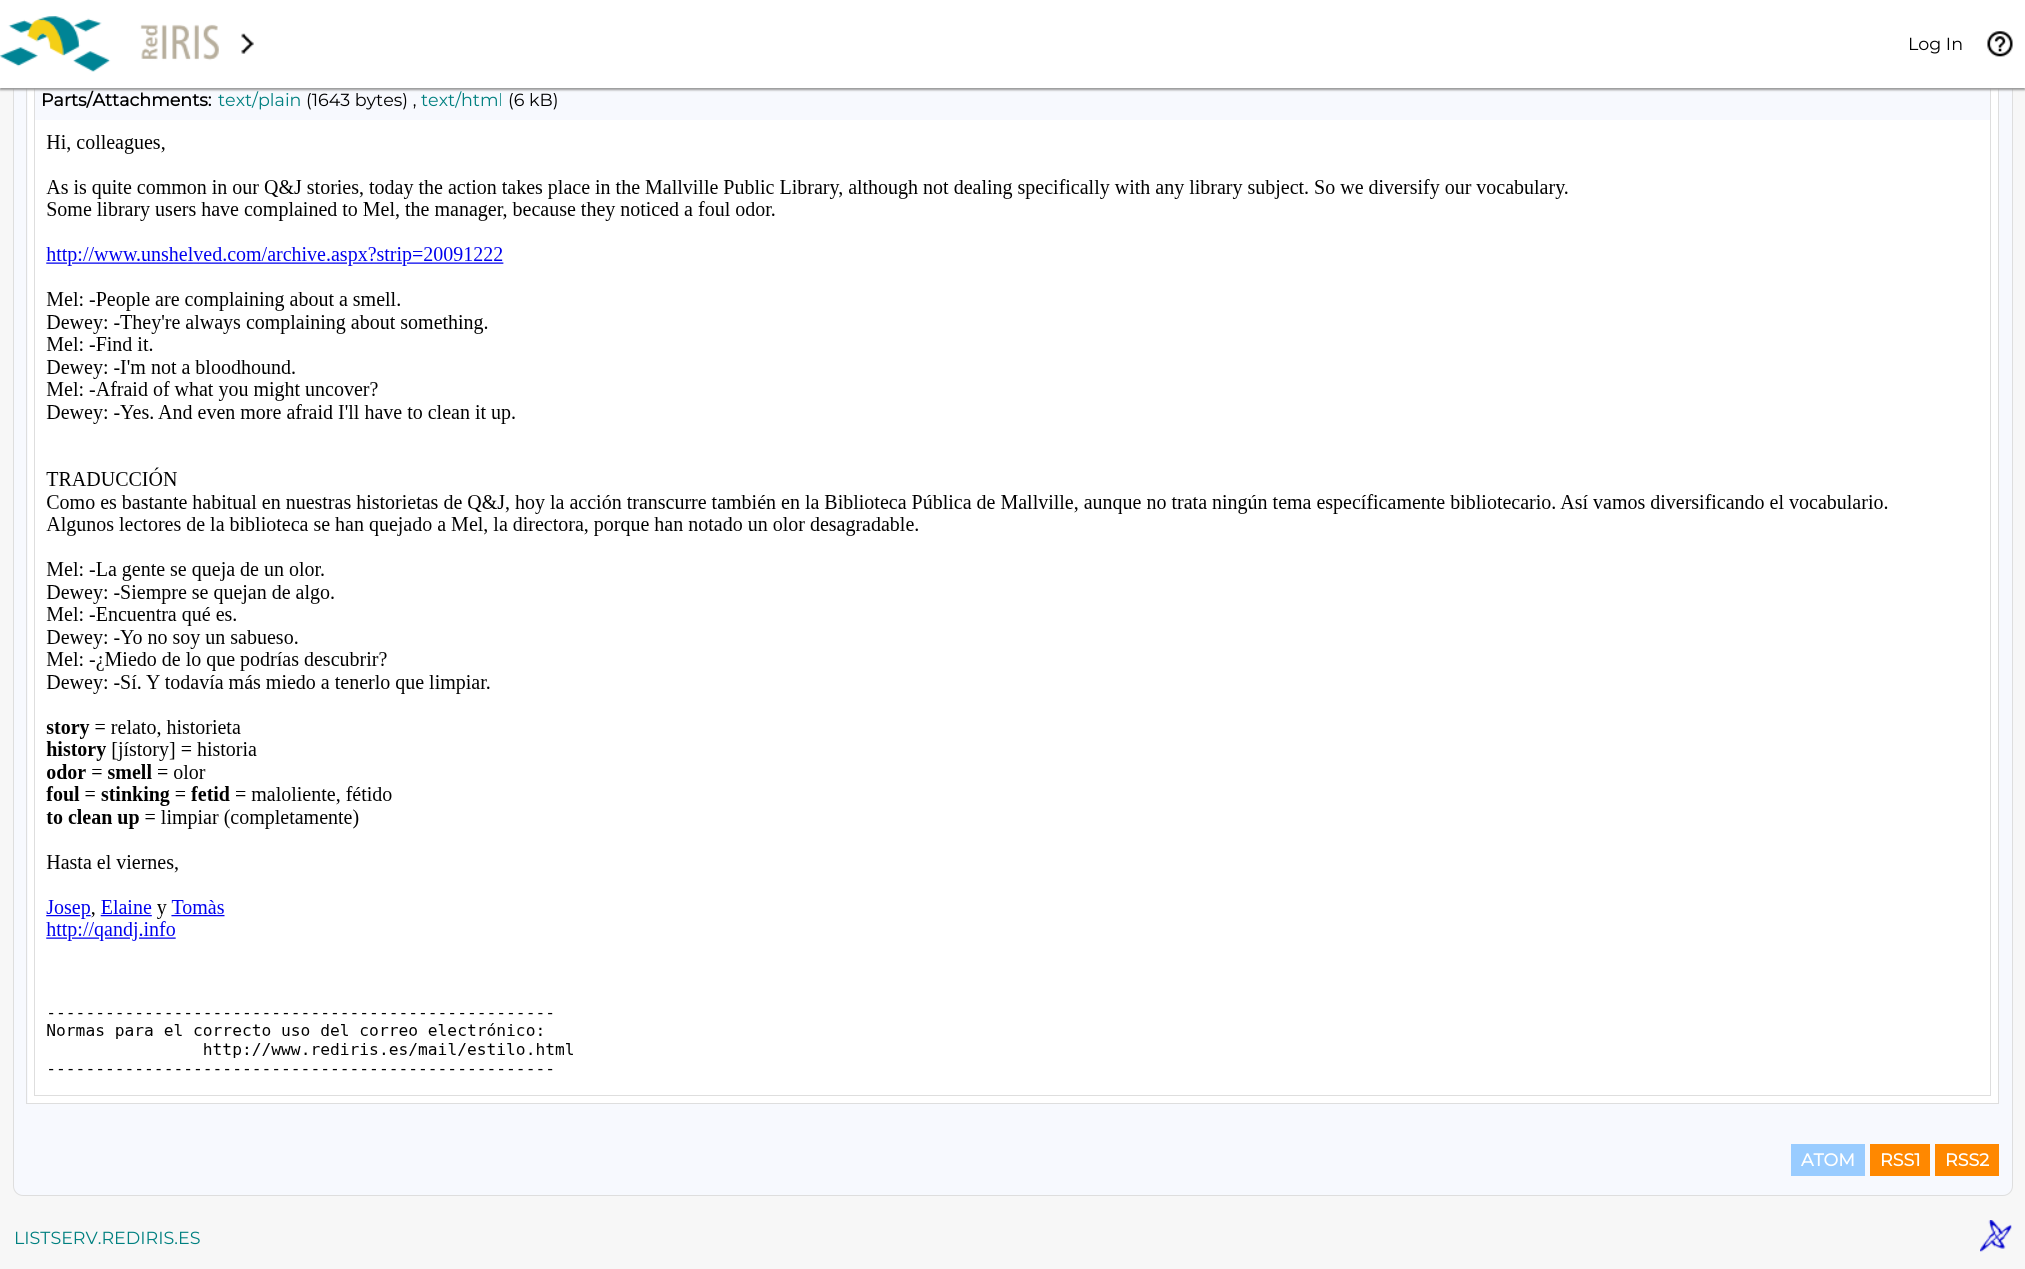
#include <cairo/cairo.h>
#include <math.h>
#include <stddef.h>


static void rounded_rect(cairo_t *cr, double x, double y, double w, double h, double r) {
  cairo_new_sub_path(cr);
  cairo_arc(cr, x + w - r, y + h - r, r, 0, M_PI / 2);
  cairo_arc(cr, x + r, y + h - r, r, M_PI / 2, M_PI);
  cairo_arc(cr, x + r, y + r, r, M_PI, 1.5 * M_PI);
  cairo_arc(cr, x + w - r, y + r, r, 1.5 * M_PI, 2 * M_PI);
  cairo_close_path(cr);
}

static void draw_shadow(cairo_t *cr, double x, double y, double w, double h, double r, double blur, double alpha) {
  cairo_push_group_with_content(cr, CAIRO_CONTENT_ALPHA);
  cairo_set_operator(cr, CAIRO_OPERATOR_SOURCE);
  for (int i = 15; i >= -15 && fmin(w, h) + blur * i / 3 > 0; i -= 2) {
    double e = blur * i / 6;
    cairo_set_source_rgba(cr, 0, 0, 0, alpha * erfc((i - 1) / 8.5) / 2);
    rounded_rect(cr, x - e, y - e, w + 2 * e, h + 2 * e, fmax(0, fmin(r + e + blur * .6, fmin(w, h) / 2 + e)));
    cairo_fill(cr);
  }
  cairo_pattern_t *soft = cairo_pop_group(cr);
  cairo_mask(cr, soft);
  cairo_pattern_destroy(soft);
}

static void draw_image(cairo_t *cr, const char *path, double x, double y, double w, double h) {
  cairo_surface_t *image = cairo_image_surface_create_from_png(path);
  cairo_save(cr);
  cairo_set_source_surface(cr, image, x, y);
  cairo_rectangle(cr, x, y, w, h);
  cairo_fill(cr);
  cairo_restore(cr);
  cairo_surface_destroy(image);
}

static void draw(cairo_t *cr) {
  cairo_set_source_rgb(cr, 247 / 255.0, 247 / 255.0, 247 / 255.0);
  cairo_paint(cr);
  cairo_set_source_rgb(cr, 247 / 255.0, 249 / 255.0, 254 / 255.0);
  rounded_rect(cr, 13.5, -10.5, 1999, 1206, 9.5);
  cairo_fill_preserve(cr);
  cairo_set_source_rgb(cr, 222 / 255.0, 222 / 255.0, 222 / 255.0);
  cairo_set_line_width(cr, 1);
  cairo_stroke(cr);
  cairo_rectangle(cr, 26.5, -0.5, 1972, 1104);
  cairo_stroke(cr);
  cairo_set_source_rgb(cr, 1, 1, 1);
  cairo_rectangle(cr, 28, 88, 1970, 1015);
  cairo_fill(cr);
  cairo_rectangle(cr, 34.5, -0.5, 1956, 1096);
  cairo_set_source_rgb(cr, 222 / 255.0, 222 / 255.0, 222 / 255.0);
  cairo_stroke(cr);
  cairo_set_source_rgb(cr, 247 / 255.0, 249 / 255.0, 254 / 255.0);
  cairo_rectangle(cr, 35, 88, 1955, 32);
  cairo_fill(cr);
  cairo_set_source_rgb(cr, 153 / 255.0, 153 / 255.0, 153 / 255.0);
  draw_shadow(cr, 0, 3, 2025, 87, 0, 1, 1);
  cairo_set_source_rgb(cr, 1, 1, 1);
  cairo_rectangle(cr, 0, 0, 2025, 88);
  cairo_fill(cr);
  draw_image(cr, "images/1.png", 0, 16, 219, 56);
  draw_image(cr, "images/2.png", 241, 33, 13, 21);
  draw_image(cr, "images/3.png", 1987, 31, 26, 26);
  draw_image(cr, "images/4.png", 46, 135, 1842, 936);
  cairo_set_source_rgb(cr, 153 / 255.0, 204 / 255.0, 1);
  cairo_rectangle(cr, 1791, 1144, 74, 32);
  cairo_fill(cr);
  cairo_set_source_rgb(cr, 1, 136 / 255.0, 0);
  cairo_rectangle(cr, 1870, 1144, 60, 32);
  cairo_fill(cr);
  cairo_rectangle(cr, 1935, 1144, 64, 32);
  cairo_fill(cr);
  draw_image(cr, "images/5.png", 1980, 1220, 32, 32);
  cairo_select_font_face(cr, "Montserrat Thin", CAIRO_FONT_SLANT_NORMAL, CAIRO_FONT_WEIGHT_NORMAL);
  cairo_set_font_size(cr, 17.5);
  cairo_set_source_rgb(cr, 0, 0, 0);
  cairo_move_to(cr, 1908, 50);
  cairo_show_text(cr, "Log In");
  cairo_select_font_face(cr, "Montserrat", CAIRO_FONT_SLANT_NORMAL, CAIRO_FONT_WEIGHT_BOLD);
  cairo_move_to(cr, 41, 106);
  cairo_show_text(cr, "Parts/Attachments:");
  cairo_select_font_face(cr, "Montserrat Thin", CAIRO_FONT_SLANT_NORMAL, CAIRO_FONT_WEIGHT_NORMAL);
  cairo_set_source_rgb(cr, 0, 128 / 255.0, 128 / 255.0);
  cairo_move_to(cr, 218, 106);
  cairo_show_text(cr, "text/plain");
  cairo_set_source_rgb(cr, 0, 0, 0);
  cairo_move_to(cr, 306, 106);
  cairo_show_text(cr, "(1643 bytes) ,");
  cairo_set_source_rgb(cr, 0, 128 / 255.0, 128 / 255.0);
  cairo_move_to(cr, 421, 106);
  cairo_show_text(cr, "text/html");
  cairo_set_source_rgb(cr, 0, 0, 0);
  cairo_move_to(cr, 508, 106);
  cairo_show_text(cr, "(6 kB)");
  cairo_select_font_face(cr, "Montserrat", CAIRO_FONT_SLANT_NORMAL, CAIRO_FONT_WEIGHT_BOLD);
  cairo_set_source_rgb(cr, 1, 1, 1);
  cairo_move_to(cr, 1801, 1166);
  cairo_show_text(cr, "ATOM");
  cairo_move_to(cr, 1880, 1166);
  cairo_show_text(cr, "RSS1");
  cairo_move_to(cr, 1945, 1166);
  cairo_show_text(cr, "RSS2");
  cairo_select_font_face(cr, "Montserrat Thin", CAIRO_FONT_SLANT_NORMAL, CAIRO_FONT_WEIGHT_NORMAL);
  cairo_set_source_rgb(cr, 0, 128 / 255.0, 128 / 255.0);
  cairo_move_to(cr, 14, 1244);
  cairo_show_text(cr, "LISTSERV.REDIRIS.ES");
}

int main(void) {
  cairo_surface_t *surface = cairo_image_surface_create(CAIRO_FORMAT_RGB24, 2025, 1269);
  cairo_t *cr = cairo_create(surface);
  cairo_font_options_t *options = cairo_font_options_create();
  cairo_font_options_set_hint_metrics(options, CAIRO_HINT_METRICS_OFF);
  cairo_font_options_set_hint_style(options, CAIRO_HINT_STYLE_NONE);
  cairo_set_font_options(cr, options);
  cairo_set_miter_limit(cr, 4);
  draw(cr);
  cairo_surface_write_to_png(surface, "out.png");
  cairo_font_options_destroy(options);
  cairo_destroy(cr);
  cairo_surface_destroy(surface);
  return 0;
}
